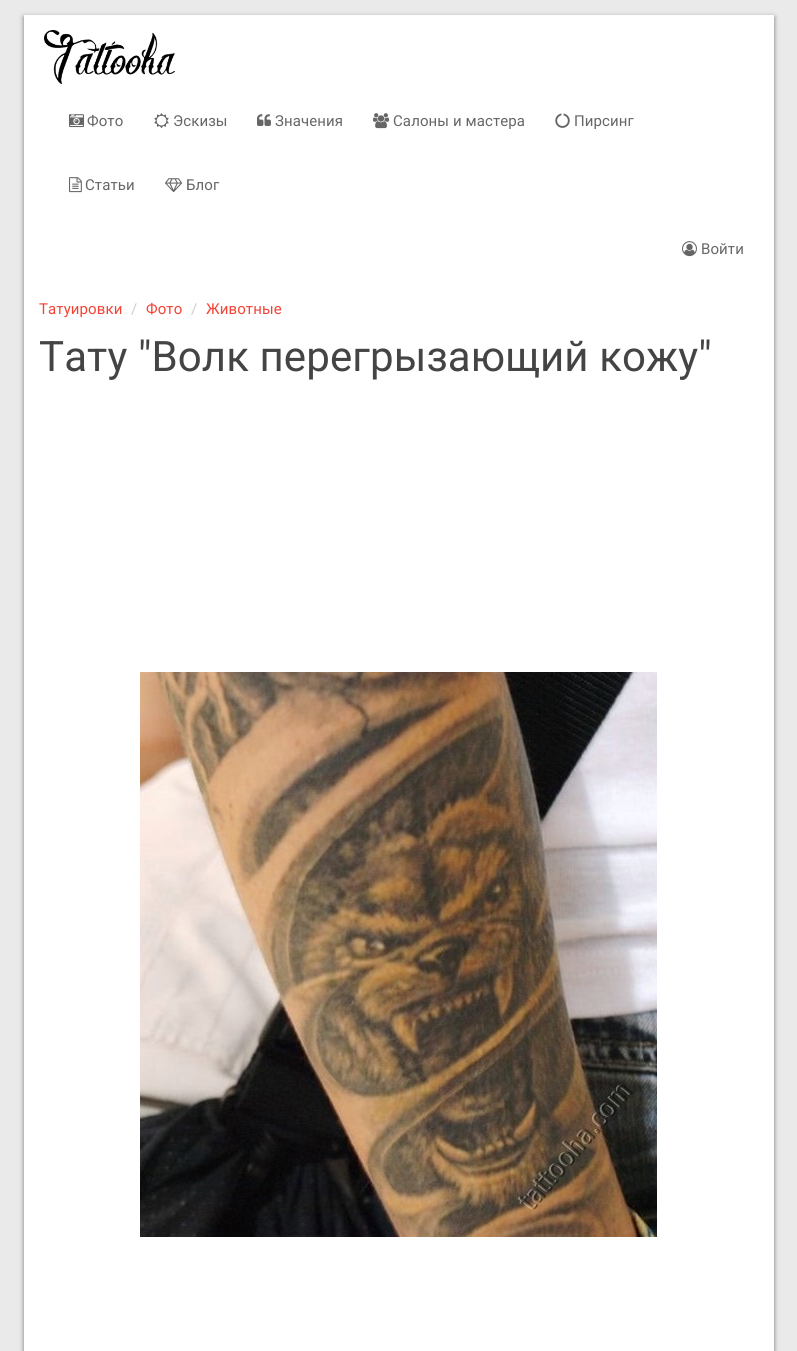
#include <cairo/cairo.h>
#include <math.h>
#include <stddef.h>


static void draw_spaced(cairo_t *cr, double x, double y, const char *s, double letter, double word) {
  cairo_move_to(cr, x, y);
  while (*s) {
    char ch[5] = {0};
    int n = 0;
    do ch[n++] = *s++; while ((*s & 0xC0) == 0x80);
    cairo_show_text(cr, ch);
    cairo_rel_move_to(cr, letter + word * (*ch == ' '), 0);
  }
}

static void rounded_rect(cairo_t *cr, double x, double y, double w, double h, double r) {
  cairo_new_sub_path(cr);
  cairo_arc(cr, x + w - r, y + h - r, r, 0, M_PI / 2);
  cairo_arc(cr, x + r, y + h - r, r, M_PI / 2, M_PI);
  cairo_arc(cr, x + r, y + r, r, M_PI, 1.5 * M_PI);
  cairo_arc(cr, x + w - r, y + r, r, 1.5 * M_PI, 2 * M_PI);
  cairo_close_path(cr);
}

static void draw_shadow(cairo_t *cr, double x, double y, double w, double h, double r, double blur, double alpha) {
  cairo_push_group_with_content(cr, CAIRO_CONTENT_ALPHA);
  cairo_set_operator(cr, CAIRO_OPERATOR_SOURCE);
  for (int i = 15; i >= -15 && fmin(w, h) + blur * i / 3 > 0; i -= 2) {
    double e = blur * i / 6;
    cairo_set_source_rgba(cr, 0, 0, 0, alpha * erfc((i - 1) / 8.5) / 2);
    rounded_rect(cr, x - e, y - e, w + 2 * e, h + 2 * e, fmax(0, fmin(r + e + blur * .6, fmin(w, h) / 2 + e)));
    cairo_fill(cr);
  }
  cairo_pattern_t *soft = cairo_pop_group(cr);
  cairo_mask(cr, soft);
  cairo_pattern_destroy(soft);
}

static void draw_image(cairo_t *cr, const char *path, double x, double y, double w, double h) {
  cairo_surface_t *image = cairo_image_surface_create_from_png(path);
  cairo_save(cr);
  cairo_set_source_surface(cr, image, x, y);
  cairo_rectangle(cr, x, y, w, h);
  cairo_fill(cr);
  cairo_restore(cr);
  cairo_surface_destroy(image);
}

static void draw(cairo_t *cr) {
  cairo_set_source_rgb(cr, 234 / 255.0, 234 / 255.0, 234 / 255.0);
  cairo_paint(cr);
  cairo_set_source_rgb(cr, 0, 0, 0);
  draw_shadow(cr, 24, 17, 750, 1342, 0, 2.5, 0.5);
  cairo_set_source_rgb(cr, 1, 1, 1);
  cairo_rectangle(cr, 24, 15, 750, 1336);
  cairo_fill(cr);
  draw_image(cr, "images/1.png", 44, 30, 131, 54);
  draw_image(cr, "images/2.png", 69, 114, 15, 14);
  draw_image(cr, "images/3.png", 154, 113, 15, 16);
  draw_image(cr, "images/4.png", 257, 114, 14, 12);
  draw_image(cr, "images/5.png", 373, 113, 17, 16);
  draw_image(cr, "images/6.png", 555, 113, 15, 15);
  draw_image(cr, "images/7.png", 69, 177, 13, 16);
  draw_image(cr, "images/8.png", 165, 178, 18, 15);
  draw_image(cr, "images/9.png", 682, 241, 15, 16);
  draw_image(cr, "images/10.png", 140, 672, 517, 565);
  cairo_select_font_face(cr, "Roboto", CAIRO_FONT_SLANT_NORMAL, CAIRO_FONT_WEIGHT_NORMAL);
  cairo_set_font_size(cr, 15);
  cairo_set_source_rgb(cr, 102 / 255.0, 102 / 255.0, 102 / 255.0);
  draw_spaced(cr, 87, 126, "Фото", 0.1, 0);
  draw_spaced(cr, 173, 126, "Эскизы", 0.1, 0);
  draw_spaced(cr, 275, 126, "Значения", 0.1, 0);
  draw_spaced(cr, 393, 126, "Салоны и мастера", 0.1, 0);
  draw_spaced(cr, 574, 126, "Пирсинг", 0.1, 0);
  draw_spaced(cr, 85, 190, "Статьи", 0.1, 0);
  draw_spaced(cr, 186, 190, "Блог", 0.1, 0);
  draw_spaced(cr, 701, 254, "Войти", 0.1, 0);
  cairo_set_source_rgb(cr, 244 / 255.0, 67 / 255.0, 54 / 255.0);
  draw_spaced(cr, 39, 314, "Татуировки", 0.1, 0);
  cairo_set_source_rgb(cr, 204 / 255.0, 204 / 255.0, 204 / 255.0);
  draw_spaced(cr, 131, 314, "/", 0.1, 0);
  cairo_set_source_rgb(cr, 244 / 255.0, 67 / 255.0, 54 / 255.0);
  draw_spaced(cr, 146, 314, "Фото", 0.1, 0);
  cairo_set_source_rgb(cr, 204 / 255.0, 204 / 255.0, 204 / 255.0);
  draw_spaced(cr, 191, 314, "/", 0.1, 0);
  cairo_set_source_rgb(cr, 244 / 255.0, 67 / 255.0, 54 / 255.0);
  draw_spaced(cr, 206, 314, "Животные", 0.1, 0);
  cairo_set_font_size(cr, 42);
  cairo_set_source_rgb(cr, 68 / 255.0, 68 / 255.0, 68 / 255.0);
  draw_spaced(cr, 39, 371, "Тату \"Волк перегрызающий кожу\"", 0.1, 0);
}

int main(void) {
  cairo_surface_t *surface = cairo_image_surface_create(CAIRO_FORMAT_RGB24, 797, 1351);
  cairo_t *cr = cairo_create(surface);
  cairo_font_options_t *options = cairo_font_options_create();
  cairo_font_options_set_hint_metrics(options, CAIRO_HINT_METRICS_OFF);
  cairo_font_options_set_hint_style(options, CAIRO_HINT_STYLE_NONE);
  cairo_set_font_options(cr, options);
  cairo_set_miter_limit(cr, 4);
  draw(cr);
  cairo_surface_write_to_png(surface, "out.png");
  cairo_font_options_destroy(options);
  cairo_destroy(cr);
  cairo_surface_destroy(surface);
  return 0;
}
